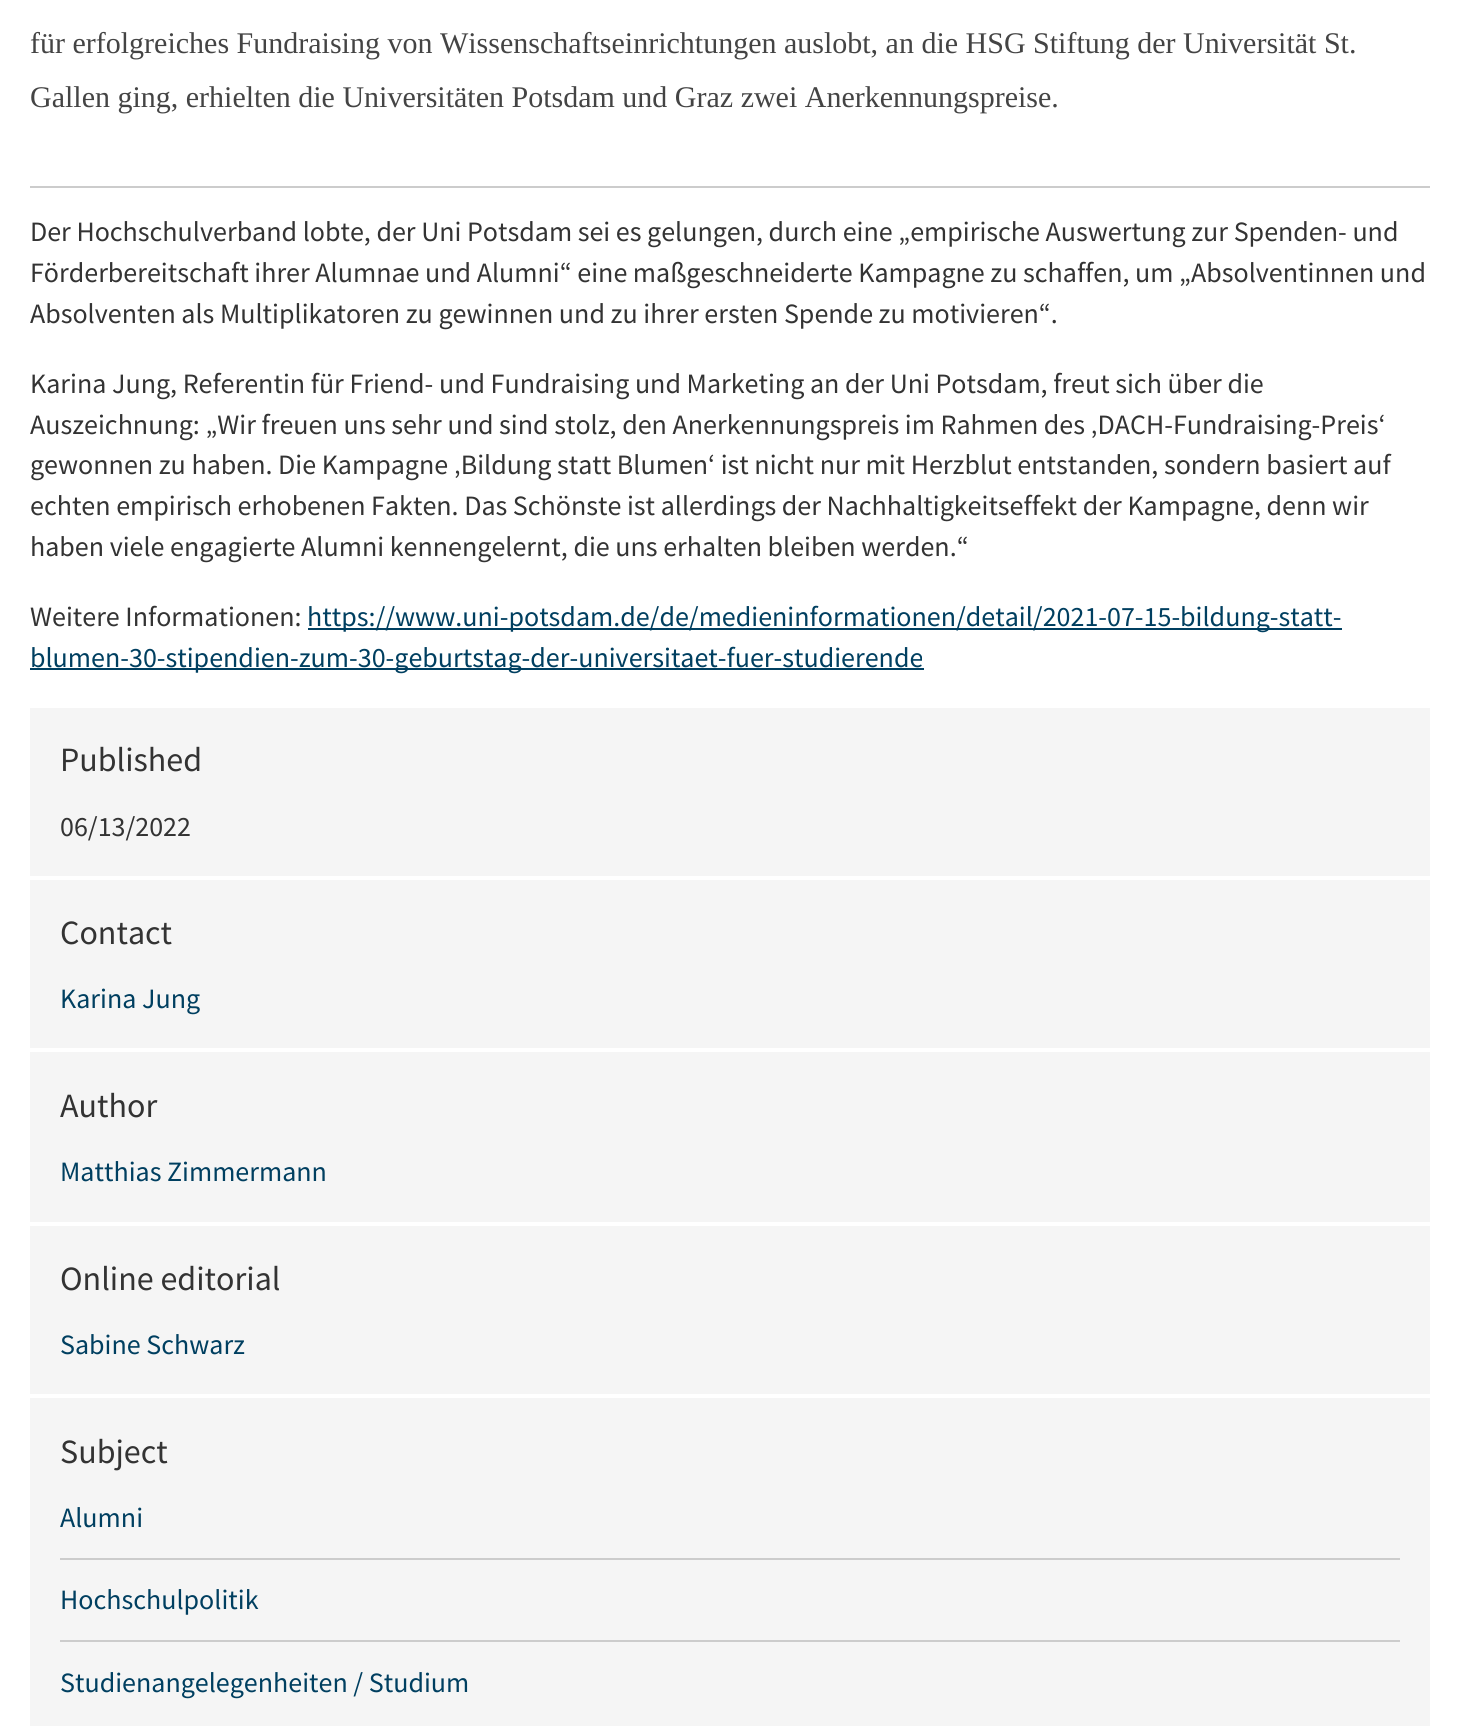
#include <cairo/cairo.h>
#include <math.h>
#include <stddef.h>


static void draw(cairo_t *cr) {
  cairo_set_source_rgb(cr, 1, 1, 1);
  cairo_paint(cr);
  cairo_set_source_rgb(cr, 204 / 255.0, 204 / 255.0, 204 / 255.0);
  cairo_rectangle(cr, 30, 186, 1400, 2);
  cairo_fill(cr);
  cairo_set_source_rgb(cr, 0, 63 / 255.0, 96 / 255.0);
  cairo_rectangle(cr, 308, 628, 1034, 2);
  cairo_fill(cr);
  cairo_rectangle(cr, 30, 668, 894, 2);
  cairo_fill(cr);
  cairo_set_source_rgb(cr, 245 / 255.0, 245 / 255.0, 245 / 255.0);
  cairo_rectangle(cr, 30, 708, 1400, 168);
  cairo_fill(cr);
  cairo_rectangle(cr, 30, 880, 1400, 168);
  cairo_fill(cr);
  cairo_rectangle(cr, 30, 1052, 1400, 170);
  cairo_fill(cr);
  cairo_rectangle(cr, 30, 1226, 1400, 168);
  cairo_fill(cr);
  cairo_rectangle(cr, 30, 1398, 1400, 328);
  cairo_fill(cr);
  cairo_set_source_rgb(cr, 204 / 255.0, 204 / 255.0, 204 / 255.0);
  cairo_rectangle(cr, 60, 1558, 1340, 2);
  cairo_fill(cr);
  cairo_rectangle(cr, 60, 1640, 1340, 2);
  cairo_fill(cr);
  cairo_select_font_face(cr, "Liberation Serif", CAIRO_FONT_SLANT_NORMAL, CAIRO_FONT_WEIGHT_NORMAL);
  cairo_set_font_size(cr, 30);
  cairo_set_source_rgb(cr, 68 / 255.0, 68 / 255.0, 68 / 255.0);
  cairo_move_to(cr, 30, 53);
  cairo_show_text(cr, "für erfolgreiches Fundraising von Wissenschaftseinrichtungen auslobt, an die HSG Stiftung der Universität St.");
  cairo_move_to(cr, 30, 107);
  cairo_show_text(cr, "Gallen ging, erhielten die Universitäten Potsdam und Graz zwei Anerkennungspreise.");
  cairo_select_font_face(cr, "Source Sans Pro", CAIRO_FONT_SLANT_NORMAL, CAIRO_FONT_WEIGHT_NORMAL);
  cairo_set_font_size(cr, 28);
  cairo_set_source_rgb(cr, 51 / 255.0, 51 / 255.0, 51 / 255.0);
  cairo_move_to(cr, 30, 241);
  cairo_show_text(cr, "Der Hochschulverband lobte, der Uni Potsdam sei es gelungen, durch eine „empirische Auswertung zur Spenden- und");
  cairo_move_to(cr, 30, 282);
  cairo_show_text(cr, "Förderbereitschaft ihrer Alumnae und Alumni“ eine maßgeschneiderte Kampagne zu schaffen, um „Absolventinnen und");
  cairo_move_to(cr, 30, 323);
  cairo_show_text(cr, "Absolventen als Multiplikatoren zu gewinnen und zu ihrer ersten Spende zu motivieren“.");
  cairo_move_to(cr, 30, 393);
  cairo_show_text(cr, "Karina Jung, Referentin für Friend- und Fundraising und Marketing an der Uni Potsdam, freut sich über die");
  cairo_move_to(cr, 30, 434);
  cairo_show_text(cr, "Auszeichnung: „Wir freuen uns sehr und sind stolz, den Anerkennungspreis im Rahmen des ‚DACH-Fundraising-Preis‘");
  cairo_move_to(cr, 30, 474);
  cairo_show_text(cr, "gewonnen zu haben. Die Kampagne ‚Bildung statt Blumen‘ ist nicht nur mit Herzblut entstanden, sondern basiert auf");
  cairo_move_to(cr, 30, 515);
  cairo_show_text(cr, "echten empirisch erhobenen Fakten. Das Schönste ist allerdings der Nachhaltigkeitseffekt der Kampagne, denn wir");
  cairo_move_to(cr, 30, 556);
  cairo_show_text(cr, "haben viele engagierte Alumni kennengelernt, die uns erhalten bleiben werden.“");
  cairo_move_to(cr, 30, 626);
  cairo_show_text(cr, "Weitere Informationen:");
  cairo_set_source_rgb(cr, 0, 63 / 255.0, 96 / 255.0);
  cairo_move_to(cr, 307, 626);
  cairo_show_text(cr, "https://www.uni-potsdam.de/de/medieninformationen/detail/2021-07-15-bildung-statt-");
  cairo_move_to(cr, 30, 667);
  cairo_show_text(cr, "blumen-30-stipendien-zum-30-geburtstag-der-universitaet-fuer-studierende");
  cairo_set_font_size(cr, 34);
  cairo_set_source_rgb(cr, 51 / 255.0, 51 / 255.0, 51 / 255.0);
  cairo_move_to(cr, 60, 771);
  cairo_show_text(cr, "Published");
  cairo_set_font_size(cr, 28);
  cairo_move_to(cr, 60, 836);
  cairo_show_text(cr, "06/13/2022");
  cairo_set_font_size(cr, 34);
  cairo_move_to(cr, 60, 944);
  cairo_show_text(cr, "Contact");
  cairo_set_font_size(cr, 28);
  cairo_set_source_rgb(cr, 0, 63 / 255.0, 96 / 255.0);
  cairo_move_to(cr, 60, 1008);
  cairo_show_text(cr, "Karina Jung");
  cairo_set_font_size(cr, 34);
  cairo_set_source_rgb(cr, 51 / 255.0, 51 / 255.0, 51 / 255.0);
  cairo_move_to(cr, 60, 1117);
  cairo_show_text(cr, "Author");
  cairo_set_font_size(cr, 28);
  cairo_set_source_rgb(cr, 0, 63 / 255.0, 96 / 255.0);
  cairo_move_to(cr, 60, 1181);
  cairo_show_text(cr, "Matthias Zimmermann");
  cairo_set_font_size(cr, 34);
  cairo_set_source_rgb(cr, 51 / 255.0, 51 / 255.0, 51 / 255.0);
  cairo_move_to(cr, 60, 1290);
  cairo_show_text(cr, "Online editorial");
  cairo_set_font_size(cr, 28);
  cairo_set_source_rgb(cr, 0, 63 / 255.0, 96 / 255.0);
  cairo_move_to(cr, 60, 1354);
  cairo_show_text(cr, "Sabine Schwarz");
  cairo_set_font_size(cr, 34);
  cairo_set_source_rgb(cr, 51 / 255.0, 51 / 255.0, 51 / 255.0);
  cairo_move_to(cr, 60, 1463);
  cairo_show_text(cr, "Subject");
  cairo_set_font_size(cr, 28);
  cairo_set_source_rgb(cr, 0, 63 / 255.0, 96 / 255.0);
  cairo_move_to(cr, 60, 1527);
  cairo_show_text(cr, "Alumni");
  cairo_move_to(cr, 60, 1609);
  cairo_show_text(cr, "Hochschulpolitik");
  cairo_move_to(cr, 60, 1692);
  cairo_show_text(cr, "Studienangelegenheiten / Studium");
}

int main(void) {
  cairo_surface_t *surface = cairo_image_surface_create(CAIRO_FORMAT_RGB24, 1460, 1726);
  cairo_t *cr = cairo_create(surface);
  cairo_font_options_t *options = cairo_font_options_create();
  cairo_font_options_set_hint_metrics(options, CAIRO_HINT_METRICS_OFF);
  cairo_font_options_set_hint_style(options, CAIRO_HINT_STYLE_NONE);
  cairo_set_font_options(cr, options);
  cairo_set_miter_limit(cr, 4);
  draw(cr);
  cairo_surface_write_to_png(surface, "out.png");
  cairo_font_options_destroy(options);
  cairo_destroy(cr);
  cairo_surface_destroy(surface);
  return 0;
}
